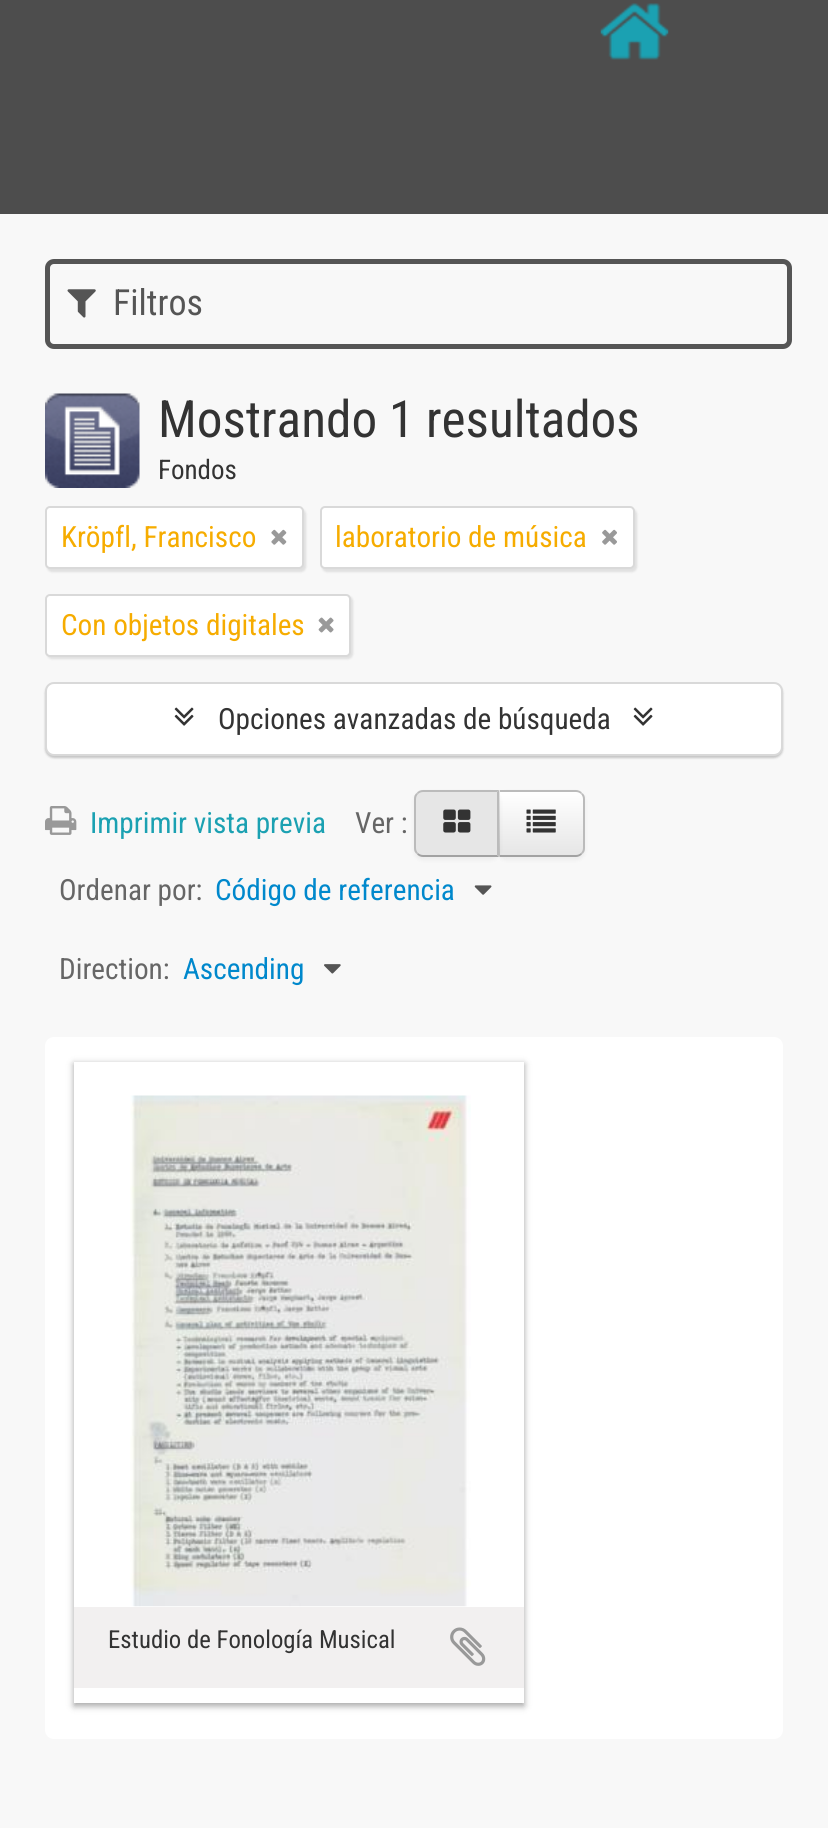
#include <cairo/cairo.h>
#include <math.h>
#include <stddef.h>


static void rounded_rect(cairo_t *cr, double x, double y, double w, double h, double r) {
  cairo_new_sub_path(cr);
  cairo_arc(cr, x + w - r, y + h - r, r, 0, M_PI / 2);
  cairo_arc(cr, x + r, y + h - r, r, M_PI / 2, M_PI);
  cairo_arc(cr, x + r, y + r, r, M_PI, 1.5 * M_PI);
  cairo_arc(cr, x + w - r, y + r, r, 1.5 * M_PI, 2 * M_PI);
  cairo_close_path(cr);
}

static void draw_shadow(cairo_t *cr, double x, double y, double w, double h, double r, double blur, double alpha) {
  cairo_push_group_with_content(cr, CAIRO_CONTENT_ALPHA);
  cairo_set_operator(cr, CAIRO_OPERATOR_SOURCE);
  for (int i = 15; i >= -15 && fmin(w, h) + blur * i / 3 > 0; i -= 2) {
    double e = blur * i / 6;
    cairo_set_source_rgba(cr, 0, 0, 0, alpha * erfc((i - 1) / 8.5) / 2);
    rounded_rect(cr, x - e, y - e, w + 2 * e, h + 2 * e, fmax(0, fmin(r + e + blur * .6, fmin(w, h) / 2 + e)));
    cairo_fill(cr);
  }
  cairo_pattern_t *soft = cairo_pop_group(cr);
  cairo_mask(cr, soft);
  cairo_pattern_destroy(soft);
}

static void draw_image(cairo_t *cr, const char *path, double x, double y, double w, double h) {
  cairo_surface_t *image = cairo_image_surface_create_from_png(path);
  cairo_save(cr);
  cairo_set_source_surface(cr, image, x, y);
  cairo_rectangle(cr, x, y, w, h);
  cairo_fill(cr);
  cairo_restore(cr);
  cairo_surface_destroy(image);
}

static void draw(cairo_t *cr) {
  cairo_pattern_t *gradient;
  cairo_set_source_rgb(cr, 248 / 255.0, 248 / 255.0, 248 / 255.0);
  cairo_paint(cr);
  cairo_set_source_rgb(cr, 77 / 255.0, 77 / 255.0, 77 / 255.0);
  cairo_rectangle(cr, 0, 0, 828, 214);
  cairo_fill(cr);
  draw_image(cr, "images/1.png", 600, 3, 69, 57);
  rounded_rect(cr, 47.5, 261.5, 742, 85, 6.5);
  cairo_set_source_rgb(cr, 85 / 255.0, 85 / 255.0, 85 / 255.0);
  cairo_set_line_width(cr, 5);
  cairo_stroke(cr);
  draw_image(cr, "images/2.png", 67, 289, 29, 29);
  draw_image(cr, "images/3.png", 45, 393, 95, 95);
  cairo_set_source_rgb(cr, 0, 0, 0);
  draw_shadow(cr, 47, 509, 259, 63, 5, 1, 0.1);
  cairo_set_source_rgb(cr, 1, 1, 1);
  rounded_rect(cr, 46, 507, 257, 61, 4);
  cairo_fill_preserve(cr);
  cairo_set_source_rgb(cr, 217 / 255.0, 217 / 255.0, 217 / 255.0);
  cairo_set_line_width(cr, 2);
  cairo_stroke(cr);
  draw_image(cr, "images/4.png", 271, 529, 16, 16);
  cairo_set_source_rgb(cr, 0, 0, 0);
  draw_shadow(cr, 322, 509, 315, 63, 5, 1, 0.1);
  cairo_set_source_rgb(cr, 1, 1, 1);
  rounded_rect(cr, 321, 507, 313, 61, 4);
  cairo_fill_preserve(cr);
  cairo_set_source_rgb(cr, 217 / 255.0, 217 / 255.0, 217 / 255.0);
  cairo_stroke(cr);
  draw_image(cr, "images/5.png", 602, 529, 15, 16);
  cairo_set_source_rgb(cr, 0, 0, 0);
  draw_shadow(cr, 47, 596, 306, 63, 5, 1, 0.1);
  cairo_set_source_rgb(cr, 1, 1, 1);
  rounded_rect(cr, 46, 595, 304, 61, 4);
  cairo_fill_preserve(cr);
  cairo_set_source_rgb(cr, 217 / 255.0, 217 / 255.0, 217 / 255.0);
  cairo_stroke(cr);
  draw_image(cr, "images/6.png", 318, 617, 16, 16);
  cairo_set_source_rgb(cr, 0, 0, 0);
  draw_shadow(cr, 45, 684, 738, 74, 9, 1, 0.2);
  cairo_set_source_rgb(cr, 1, 1, 1);
  rounded_rect(cr, 46, 683, 736, 72, 8);
  cairo_fill_preserve(cr);
  cairo_set_source_rgb(cr, 217 / 255.0, 217 / 255.0, 217 / 255.0);
  cairo_stroke(cr);
  draw_image(cr, "images/7.png", 174, 707, 20, 19);
  draw_image(cr, "images/7.png", 633, 707, 20, 19);
  draw_image(cr, "images/8.png", 45, 806, 32, 29);
  cairo_set_source_rgb(cr, 0, 0, 0);
  draw_shadow(cr, 497, 792, 88, 68, 9, 2, 0.05);
  cairo_set_source_rgb(cr, 245 / 255.0, 245 / 255.0, 245 / 255.0);
  cairo_new_path(cr);
  cairo_move_to(cr, 497, 790);
  cairo_line_to(cr, 576, 790);
  cairo_curve_to(cr, 581, 790, 585, 794, 585, 799);
  cairo_line_to(cr, 585, 848);
  cairo_curve_to(cr, 585, 853, 581, 857, 576, 857);
  cairo_line_to(cr, 497, 857);
  cairo_close_path(cr);
  cairo_fill(cr);
  cairo_save(cr);
  cairo_new_path(cr);
  cairo_move_to(cr, 497, 790);
  cairo_line_to(cr, 576, 790);
  cairo_curve_to(cr, 581, 790, 585, 794, 585, 799);
  cairo_line_to(cr, 585, 848);
  cairo_curve_to(cr, 585, 853, 581, 857, 576, 857);
  cairo_line_to(cr, 497, 857);
  cairo_close_path(cr);
  cairo_clip(cr);
  gradient = cairo_pattern_create_linear(541, 792, 541, 855);
  cairo_pattern_add_color_stop_rgba(gradient, 0, 1, 1, 1, 1);
  cairo_pattern_add_color_stop_rgba(gradient, 1, 230 / 255.0, 230 / 255.0, 230 / 255.0, 1);
  cairo_set_source(cr, gradient);
  cairo_pattern_destroy(gradient);
  cairo_rectangle(cr, 500, 792, 85, 63);
  cairo_fill(cr);
  cairo_restore(cr);
  cairo_set_source_rgb(cr, 187 / 255.0, 187 / 255.0, 187 / 255.0);
  cairo_new_path(cr);
  cairo_move_to(cr, 500, 792);
  cairo_line_to(cr, 576, 792);
  cairo_curve_to(cr, 578, 792, 580, 793, 581, 794);
  cairo_line_to(cr, 582, 793);
  cairo_curve_to(cr, 581, 791, 578, 790, 576, 790);
  cairo_line_to(cr, 498, 790);
  cairo_close_path(cr);
  cairo_fill(cr);
  cairo_new_path(cr);
  cairo_move_to(cr, 582, 793);
  cairo_curve_to(cr, 584, 794, 585, 796, 585, 799);
  cairo_line_to(cr, 585, 848);
  cairo_curve_to(cr, 585, 851, 584, 853, 582, 854);
  cairo_line_to(cr, 581, 853);
  cairo_curve_to(cr, 582, 852, 583, 850, 583, 848);
  cairo_line_to(cr, 583, 799);
  cairo_curve_to(cr, 583, 797, 582, 795, 581, 794);
  cairo_close_path(cr);
  cairo_fill(cr);
  cairo_set_source_rgb(cr, 162 / 255.0, 162 / 255.0, 162 / 255.0);
  cairo_new_path(cr);
  cairo_move_to(cr, 582, 854);
  cairo_curve_to(cr, 581, 856, 578, 857, 576, 857);
  cairo_line_to(cr, 498, 857);
  cairo_line_to(cr, 500, 854);
  cairo_line_to(cr, 500, 855);
  cairo_line_to(cr, 576, 855);
  cairo_curve_to(cr, 578, 855, 580, 854, 581, 853);
  cairo_close_path(cr);
  cairo_fill(cr);
  cairo_set_source_rgb(cr, 0, 0, 0);
  draw_shadow(cr, 414, 792, 86, 68, 9, 2, 0.05);
  cairo_set_source_rgb(cr, 230 / 255.0, 230 / 255.0, 230 / 255.0);
  cairo_new_path(cr);
  cairo_move_to(cr, 423, 790);
  cairo_line_to(cr, 500, 790);
  cairo_line_to(cr, 500, 857);
  cairo_line_to(cr, 423, 857);
  cairo_curve_to(cr, 418, 857, 414, 853, 414, 848);
  cairo_line_to(cr, 414, 799);
  cairo_curve_to(cr, 414, 794, 418, 790, 423, 790);
  cairo_close_path(cr);
  cairo_fill(cr);
  cairo_set_source_rgb(cr, 187 / 255.0, 187 / 255.0, 187 / 255.0);
  cairo_new_path(cr);
  cairo_move_to(cr, 423, 790);
  cairo_curve_to(cr, 421, 790, 418, 791, 417, 793);
  cairo_line_to(cr, 418, 794);
  cairo_curve_to(cr, 419, 793, 421, 792, 423, 792);
  cairo_line_to(cr, 497, 792);
  cairo_line_to(cr, 499, 790);
  cairo_close_path(cr);
  cairo_fill(cr);
  cairo_new_path(cr);
  cairo_move_to(cr, 500, 857);
  cairo_line_to(cr, 497, 855);
  cairo_line_to(cr, 497, 792);
  cairo_line_to(cr, 499, 790);
  cairo_close_path(cr);
  cairo_fill(cr);
  cairo_set_source_rgb(cr, 162 / 255.0, 162 / 255.0, 162 / 255.0);
  cairo_new_path(cr);
  cairo_move_to(cr, 499, 857);
  cairo_line_to(cr, 423, 857);
  cairo_curve_to(cr, 421, 857, 418, 856, 417, 854);
  cairo_line_to(cr, 418, 853);
  cairo_curve_to(cr, 419, 854, 421, 855, 423, 855);
  cairo_line_to(cr, 497, 855);
  cairo_close_path(cr);
  cairo_fill(cr);
  cairo_set_source_rgb(cr, 187 / 255.0, 187 / 255.0, 187 / 255.0);
  cairo_new_path(cr);
  cairo_move_to(cr, 414, 799);
  cairo_line_to(cr, 414, 848);
  cairo_curve_to(cr, 414, 851, 415, 853, 417, 854);
  cairo_line_to(cr, 418, 853);
  cairo_curve_to(cr, 417, 852, 416, 850, 416, 848);
  cairo_line_to(cr, 416, 799);
  cairo_curve_to(cr, 416, 797, 417, 795, 418, 794);
  cairo_line_to(cr, 417, 793);
  cairo_curve_to(cr, 415, 794, 414, 796, 414, 799);
  cairo_close_path(cr);
  cairo_fill(cr);
  draw_image(cr, "images/9.png", 443, 809, 28, 24);
  draw_image(cr, "images/10.png", 526, 809, 30, 24);
  draw_image(cr, "images/11.png", 474, 885, 18, 10);
  draw_image(cr, "images/12.png", 324, 964, 17, 10);
  cairo_set_source_rgb(cr, 1, 1, 1);
  rounded_rect(cr, 45, 1037, 738, 702, 9);
  cairo_fill(cr);
  cairo_set_source_rgb(cr, 25 / 255.0, 25 / 255.0, 25 / 255.0);
  draw_shadow(cr, 74, 1064, 450, 642, 0, 3.5, 0.4);
  cairo_set_source_rgb(cr, 1, 1, 1);
  cairo_rectangle(cr, 74, 1062, 450, 641);
  cairo_fill(cr);
  draw_image(cr, "images/13.png", 130, 1095, 341, 512);
  cairo_set_source_rgb(cr, 242 / 255.0, 240 / 255.0, 240 / 255.0);
  cairo_rectangle(cr, 74, 1607, 450, 81);
  cairo_fill(cr);
  draw_image(cr, "images/14.png", 450, 1627, 36, 39);
  cairo_select_font_face(cr, "Roboto Condensed", CAIRO_FONT_SLANT_NORMAL, CAIRO_FONT_WEIGHT_NORMAL);
  cairo_set_font_size(cr, 36);
  cairo_set_source_rgb(cr, 85 / 255.0, 85 / 255.0, 85 / 255.0);
  cairo_move_to(cr, 113, 315);
  cairo_show_text(cr, "Filtros");
  cairo_set_font_size(cr, 51.25);
  cairo_set_source_rgb(cr, 51 / 255.0, 51 / 255.0, 51 / 255.0);
  cairo_move_to(cr, 158, 437);
  cairo_show_text(cr, "Mostrando 1 resultados");
  cairo_set_font_size(cr, 27);
  cairo_move_to(cr, 158, 479);
  cairo_show_text(cr, "Fondos");
  cairo_set_font_size(cr, 29.25);
  cairo_set_source_rgb(cr, 246 / 255.0, 172 / 255.0, 0);
  cairo_move_to(cr, 61, 547);
  cairo_show_text(cr, "Kröpfl, Francisco");
  cairo_move_to(cr, 335, 547);
  cairo_show_text(cr, "laboratorio de música");
  cairo_move_to(cr, 61, 635);
  cairo_show_text(cr, "Con objetos digitales");
  cairo_set_source_rgb(cr, 51 / 255.0, 51 / 255.0, 51 / 255.0);
  cairo_move_to(cr, 218, 729);
  cairo_show_text(cr, "Opciones avanzadas de búsqueda");
  cairo_set_source_rgb(cr, 27 / 255.0, 161 / 255.0, 178 / 255.0);
  cairo_move_to(cr, 90, 833);
  cairo_show_text(cr, "Imprimir vista previa");
  cairo_set_source_rgb(cr, 102 / 255.0, 102 / 255.0, 102 / 255.0);
  cairo_move_to(cr, 355, 833);
  cairo_show_text(cr, "Ver :");
  cairo_move_to(cr, 59, 900);
  cairo_show_text(cr, "Ordenar por:");
  cairo_set_source_rgb(cr, 0, 136 / 255.0, 204 / 255.0);
  cairo_move_to(cr, 215, 900);
  cairo_show_text(cr, "Código de referencia");
  cairo_set_source_rgb(cr, 102 / 255.0, 102 / 255.0, 102 / 255.0);
  cairo_move_to(cr, 59, 979);
  cairo_show_text(cr, "Direction:");
  cairo_set_source_rgb(cr, 0, 136 / 255.0, 204 / 255.0);
  cairo_move_to(cr, 183, 979);
  cairo_show_text(cr, "Ascending");
  cairo_set_font_size(cr, 24.75);
  cairo_set_source_rgb(cr, 51 / 255.0, 51 / 255.0, 51 / 255.0);
  cairo_move_to(cr, 108, 1648);
  cairo_show_text(cr, "Estudio de Fonología Musical");
}

int main(void) {
  cairo_surface_t *surface = cairo_image_surface_create(CAIRO_FORMAT_RGB24, 828, 1828);
  cairo_t *cr = cairo_create(surface);
  cairo_font_options_t *options = cairo_font_options_create();
  cairo_font_options_set_hint_metrics(options, CAIRO_HINT_METRICS_OFF);
  cairo_font_options_set_hint_style(options, CAIRO_HINT_STYLE_NONE);
  cairo_set_font_options(cr, options);
  cairo_set_miter_limit(cr, 4);
  draw(cr);
  cairo_surface_write_to_png(surface, "out.png");
  cairo_font_options_destroy(options);
  cairo_destroy(cr);
  cairo_surface_destroy(surface);
  return 0;
}
